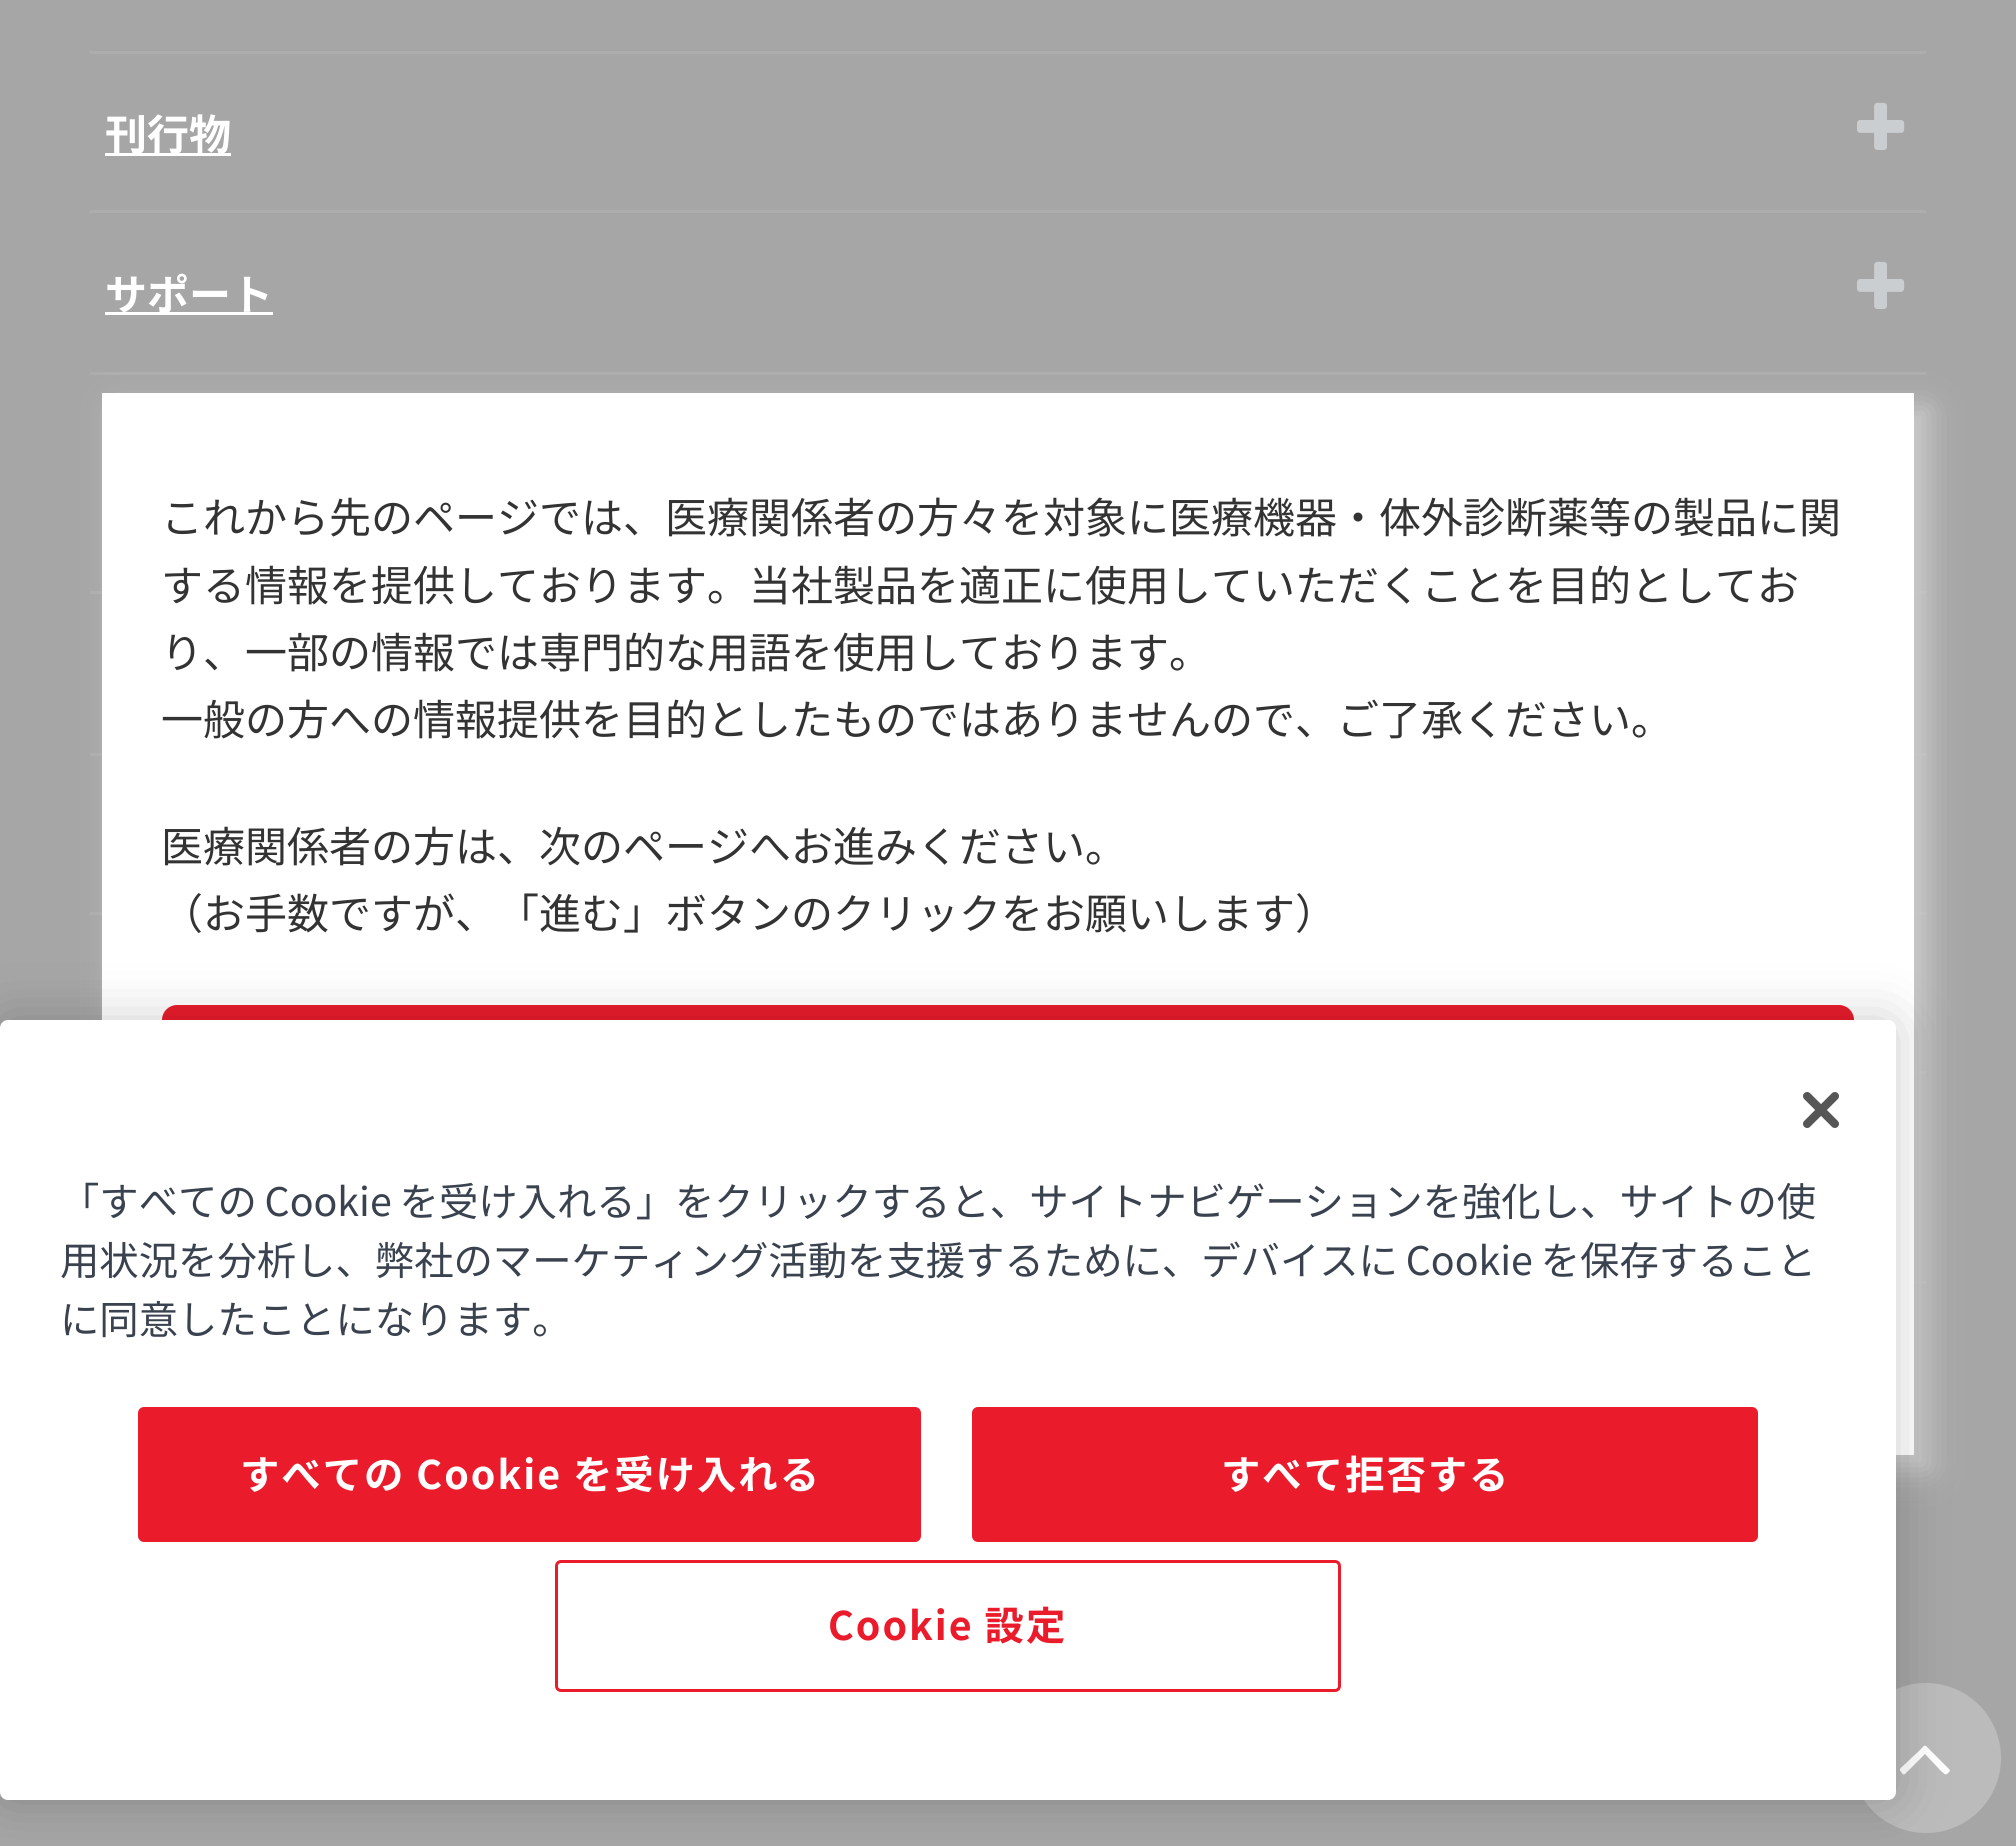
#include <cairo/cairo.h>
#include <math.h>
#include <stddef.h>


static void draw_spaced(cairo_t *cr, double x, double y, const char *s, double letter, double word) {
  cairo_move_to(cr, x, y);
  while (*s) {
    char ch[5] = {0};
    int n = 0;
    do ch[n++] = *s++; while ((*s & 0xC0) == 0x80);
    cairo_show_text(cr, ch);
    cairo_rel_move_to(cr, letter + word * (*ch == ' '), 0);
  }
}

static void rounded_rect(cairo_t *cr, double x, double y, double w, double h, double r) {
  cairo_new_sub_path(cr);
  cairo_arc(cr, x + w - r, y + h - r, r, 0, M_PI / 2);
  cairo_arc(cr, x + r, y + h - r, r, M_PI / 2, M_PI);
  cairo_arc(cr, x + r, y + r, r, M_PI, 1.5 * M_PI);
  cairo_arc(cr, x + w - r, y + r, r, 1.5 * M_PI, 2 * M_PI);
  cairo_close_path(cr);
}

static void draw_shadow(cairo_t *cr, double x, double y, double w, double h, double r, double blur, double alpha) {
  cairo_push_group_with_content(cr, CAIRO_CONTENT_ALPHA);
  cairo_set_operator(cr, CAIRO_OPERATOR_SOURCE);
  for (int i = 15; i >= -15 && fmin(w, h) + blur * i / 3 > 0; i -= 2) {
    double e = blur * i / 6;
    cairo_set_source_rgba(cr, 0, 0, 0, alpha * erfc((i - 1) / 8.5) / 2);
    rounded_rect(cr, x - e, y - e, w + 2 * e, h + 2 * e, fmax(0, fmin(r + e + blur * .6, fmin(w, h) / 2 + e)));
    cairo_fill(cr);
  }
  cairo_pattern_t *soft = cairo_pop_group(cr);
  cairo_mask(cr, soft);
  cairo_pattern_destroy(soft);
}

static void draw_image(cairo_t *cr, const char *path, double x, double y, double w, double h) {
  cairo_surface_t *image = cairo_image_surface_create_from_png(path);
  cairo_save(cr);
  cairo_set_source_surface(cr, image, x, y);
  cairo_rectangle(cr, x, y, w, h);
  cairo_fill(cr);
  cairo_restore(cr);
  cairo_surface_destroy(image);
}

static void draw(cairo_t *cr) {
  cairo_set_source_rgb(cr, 166 / 255.0, 166 / 255.0, 166 / 255.0);
  cairo_paint(cr);
  cairo_set_source_rgb(cr, 173 / 255.0, 173 / 255.0, 173 / 255.0);
  cairo_rectangle(cr, 90, 51, 1836, 3);
  cairo_fill(cr);
  cairo_rectangle(cr, 90, 210, 1836, 3);
  cairo_fill(cr);
  cairo_set_source_rgb(cr, 1, 1, 1);
  cairo_rectangle(cr, 105, 153, 126, 3);
  cairo_fill(cr);
  draw_image(cr, "images/1.png", 1857, 102, 48, 48);
  cairo_set_source_rgb(cr, 173 / 255.0, 173 / 255.0, 173 / 255.0);
  cairo_rectangle(cr, 90, 372, 1836, 3);
  cairo_fill(cr);
  cairo_set_source_rgb(cr, 1, 1, 1);
  cairo_rectangle(cr, 105, 312, 168, 3);
  cairo_fill(cr);
  draw_image(cr, "images/1.png", 1857, 261, 48, 48);
  cairo_set_source_rgb(cr, 173 / 255.0, 173 / 255.0, 173 / 255.0);
  cairo_rectangle(cr, 90, 591, 1836, 3);
  cairo_fill(cr);
  cairo_rectangle(cr, 90, 753, 1836, 3);
  cairo_fill(cr);
  cairo_rectangle(cr, 90, 912, 1836, 3);
  cairo_fill(cr);
  cairo_rectangle(cr, 1914, 1071, 12, 3);
  cairo_fill(cr);
  cairo_rectangle(cr, 1914, 1281, 12, 3);
  cairo_fill(cr);
  cairo_set_source_rgb(cr, 205 / 255.0, 204 / 255.0, 204 / 255.0);
  draw_shadow(cr, 117, 408, 1812, 1062, 0, 15, 1);
  cairo_set_source_rgb(cr, 1, 1, 1);
  cairo_rectangle(cr, 102, 393, 1812, 1062);
  cairo_fill(cr);
  cairo_set_source_rgb(cr, 234 / 255.0, 28 / 255.0, 44 / 255.0);
  rounded_rect(cr, 162, 1005, 1692, 150, 15);
  cairo_fill(cr);
  cairo_set_source_rgb(cr, 187 / 255.0, 187 / 255.0, 187 / 255.0);
  cairo_arc(cr, 1926, 1758, 75, 0, 2 * M_PI);
  cairo_fill(cr);
  cairo_set_source_rgb(cr, 1, 1, 1);
  cairo_new_path(cr);
  cairo_move_to(cr, 1949, 1769);
  cairo_curve_to(cr, 1951, 1771, 1949, 1772, 1948, 1773);
  cairo_curve_to(cr, 1945, 1776, 1945, 1774, 1941, 1771);
  cairo_line_to(cr, 1925, 1754);
  cairo_line_to(cr, 1905, 1774);
  cairo_curve_to(cr, 1903, 1775, 1902, 1774, 1902, 1773);
  cairo_curve_to(cr, 1898, 1769, 1900, 1769, 1904, 1765);
  cairo_line_to(cr, 1920, 1750);
  cairo_curve_to(cr, 1926, 1744, 1924, 1744, 1930, 1750);
  cairo_close_path(cr);
  cairo_fill(cr);
  cairo_set_source_rgb(cr, 0, 0, 0);
  draw_shadow(cr, 0, 1020, 1896, 780, 8, 27, 0.2);
  cairo_set_source_rgb(cr, 1, 1, 1);
  rounded_rect(cr, 0, 1020, 1896, 780, 8);
  cairo_fill(cr);
  draw_image(cr, "images/2.png", 1803, 1092, 36, 36);
  cairo_set_source_rgb(cr, 234 / 255.0, 28 / 255.0, 44 / 255.0);
  rounded_rect(cr, 139.5, 1408.5, 780, 132, 4.5);
  cairo_fill_preserve(cr);
  cairo_set_line_width(cr, 3);
  cairo_stroke(cr);
  rounded_rect(cr, 973.5, 1408.5, 783, 132, 4.5);
  cairo_fill_preserve(cr);
  cairo_stroke(cr);
  rounded_rect(cr, 556.5, 1561.5, 783, 129, 4.5);
  cairo_stroke(cr);
  cairo_select_font_face(cr, "Noto Sans JP", CAIRO_FONT_SLANT_NORMAL, CAIRO_FONT_WEIGHT_BOLD);
  cairo_set_font_size(cr, 42);
  cairo_set_source_rgb(cr, 1, 1, 1);
  cairo_move_to(cr, 105, 150);
  cairo_show_text(cr, "刊行物");
  cairo_move_to(cr, 105, 310);
  cairo_show_text(cr, "サポート");
  cairo_select_font_face(cr, "Noto Sans JP", CAIRO_FONT_SLANT_NORMAL, CAIRO_FONT_WEIGHT_NORMAL);
  cairo_set_source_rgb(cr, 51 / 255.0, 51 / 255.0, 51 / 255.0);
  cairo_move_to(cr, 161, 533);
  cairo_show_text(cr, "これから先のページでは、医療関係者の方々を対象に医療機器・体外診断薬等の製品に関");
  cairo_move_to(cr, 161, 601);
  cairo_show_text(cr, "する情報を提供しております。当社製品を適正に使用していただくことを目的としてお");
  cairo_move_to(cr, 161, 668);
  cairo_show_text(cr, "り、一部の情報では専門的な用語を使用しております。");
  cairo_move_to(cr, 161, 735);
  cairo_show_text(cr, "一般の方への情報提供を目的としたものではありませんので、ご了承ください。");
  cairo_move_to(cr, 161, 862);
  cairo_show_text(cr, "医療関係者の方は、次のページへお進みください。");
  cairo_move_to(cr, 161, 929);
  cairo_show_text(cr, "（お手数ですが、「進む」ボタンのクリックをお願いします）");
  cairo_set_font_size(cr, 39.35);
  cairo_set_source_rgb(cr, 57 / 255.0, 66 / 255.0, 78 / 255.0);
  draw_spaced(cr, 60, 1216, "「すべての Cookie を受け入れる」をクリックすると、サイトナビゲーションを強化し、サイトの使", 0, -1);
  draw_spaced(cr, 60, 1275, "用状況を分析し、弊社のマーケティング活動を支援するために、デバイスに Cookie を保存すること", 0, -1);
  cairo_move_to(cr, 60, 1334);
  cairo_show_text(cr, "に同意したことになります。");
  cairo_select_font_face(cr, "Noto Sans JP", CAIRO_FONT_SLANT_NORMAL, CAIRO_FONT_WEIGHT_BOLD);
  cairo_set_source_rgb(cr, 1, 1, 1);
  draw_spaced(cr, 240, 1489, "すべての Cookie を受け入れる", 2, 0);
  draw_spaced(cr, 1221, 1489, "すべて拒否する", 2, 0);
  cairo_set_source_rgb(cr, 234 / 255.0, 28 / 255.0, 44 / 255.0);
  draw_spaced(cr, 828, 1640, "Cookie 設定", 2, 0);
}

int main(void) {
  cairo_surface_t *surface = cairo_image_surface_create(CAIRO_FORMAT_RGB24, 2016, 1846);
  cairo_t *cr = cairo_create(surface);
  cairo_font_options_t *options = cairo_font_options_create();
  cairo_font_options_set_hint_metrics(options, CAIRO_HINT_METRICS_OFF);
  cairo_font_options_set_hint_style(options, CAIRO_HINT_STYLE_NONE);
  cairo_set_font_options(cr, options);
  cairo_set_miter_limit(cr, 4);
  draw(cr);
  cairo_surface_write_to_png(surface, "out.png");
  cairo_font_options_destroy(options);
  cairo_destroy(cr);
  cairo_surface_destroy(surface);
  return 0;
}
